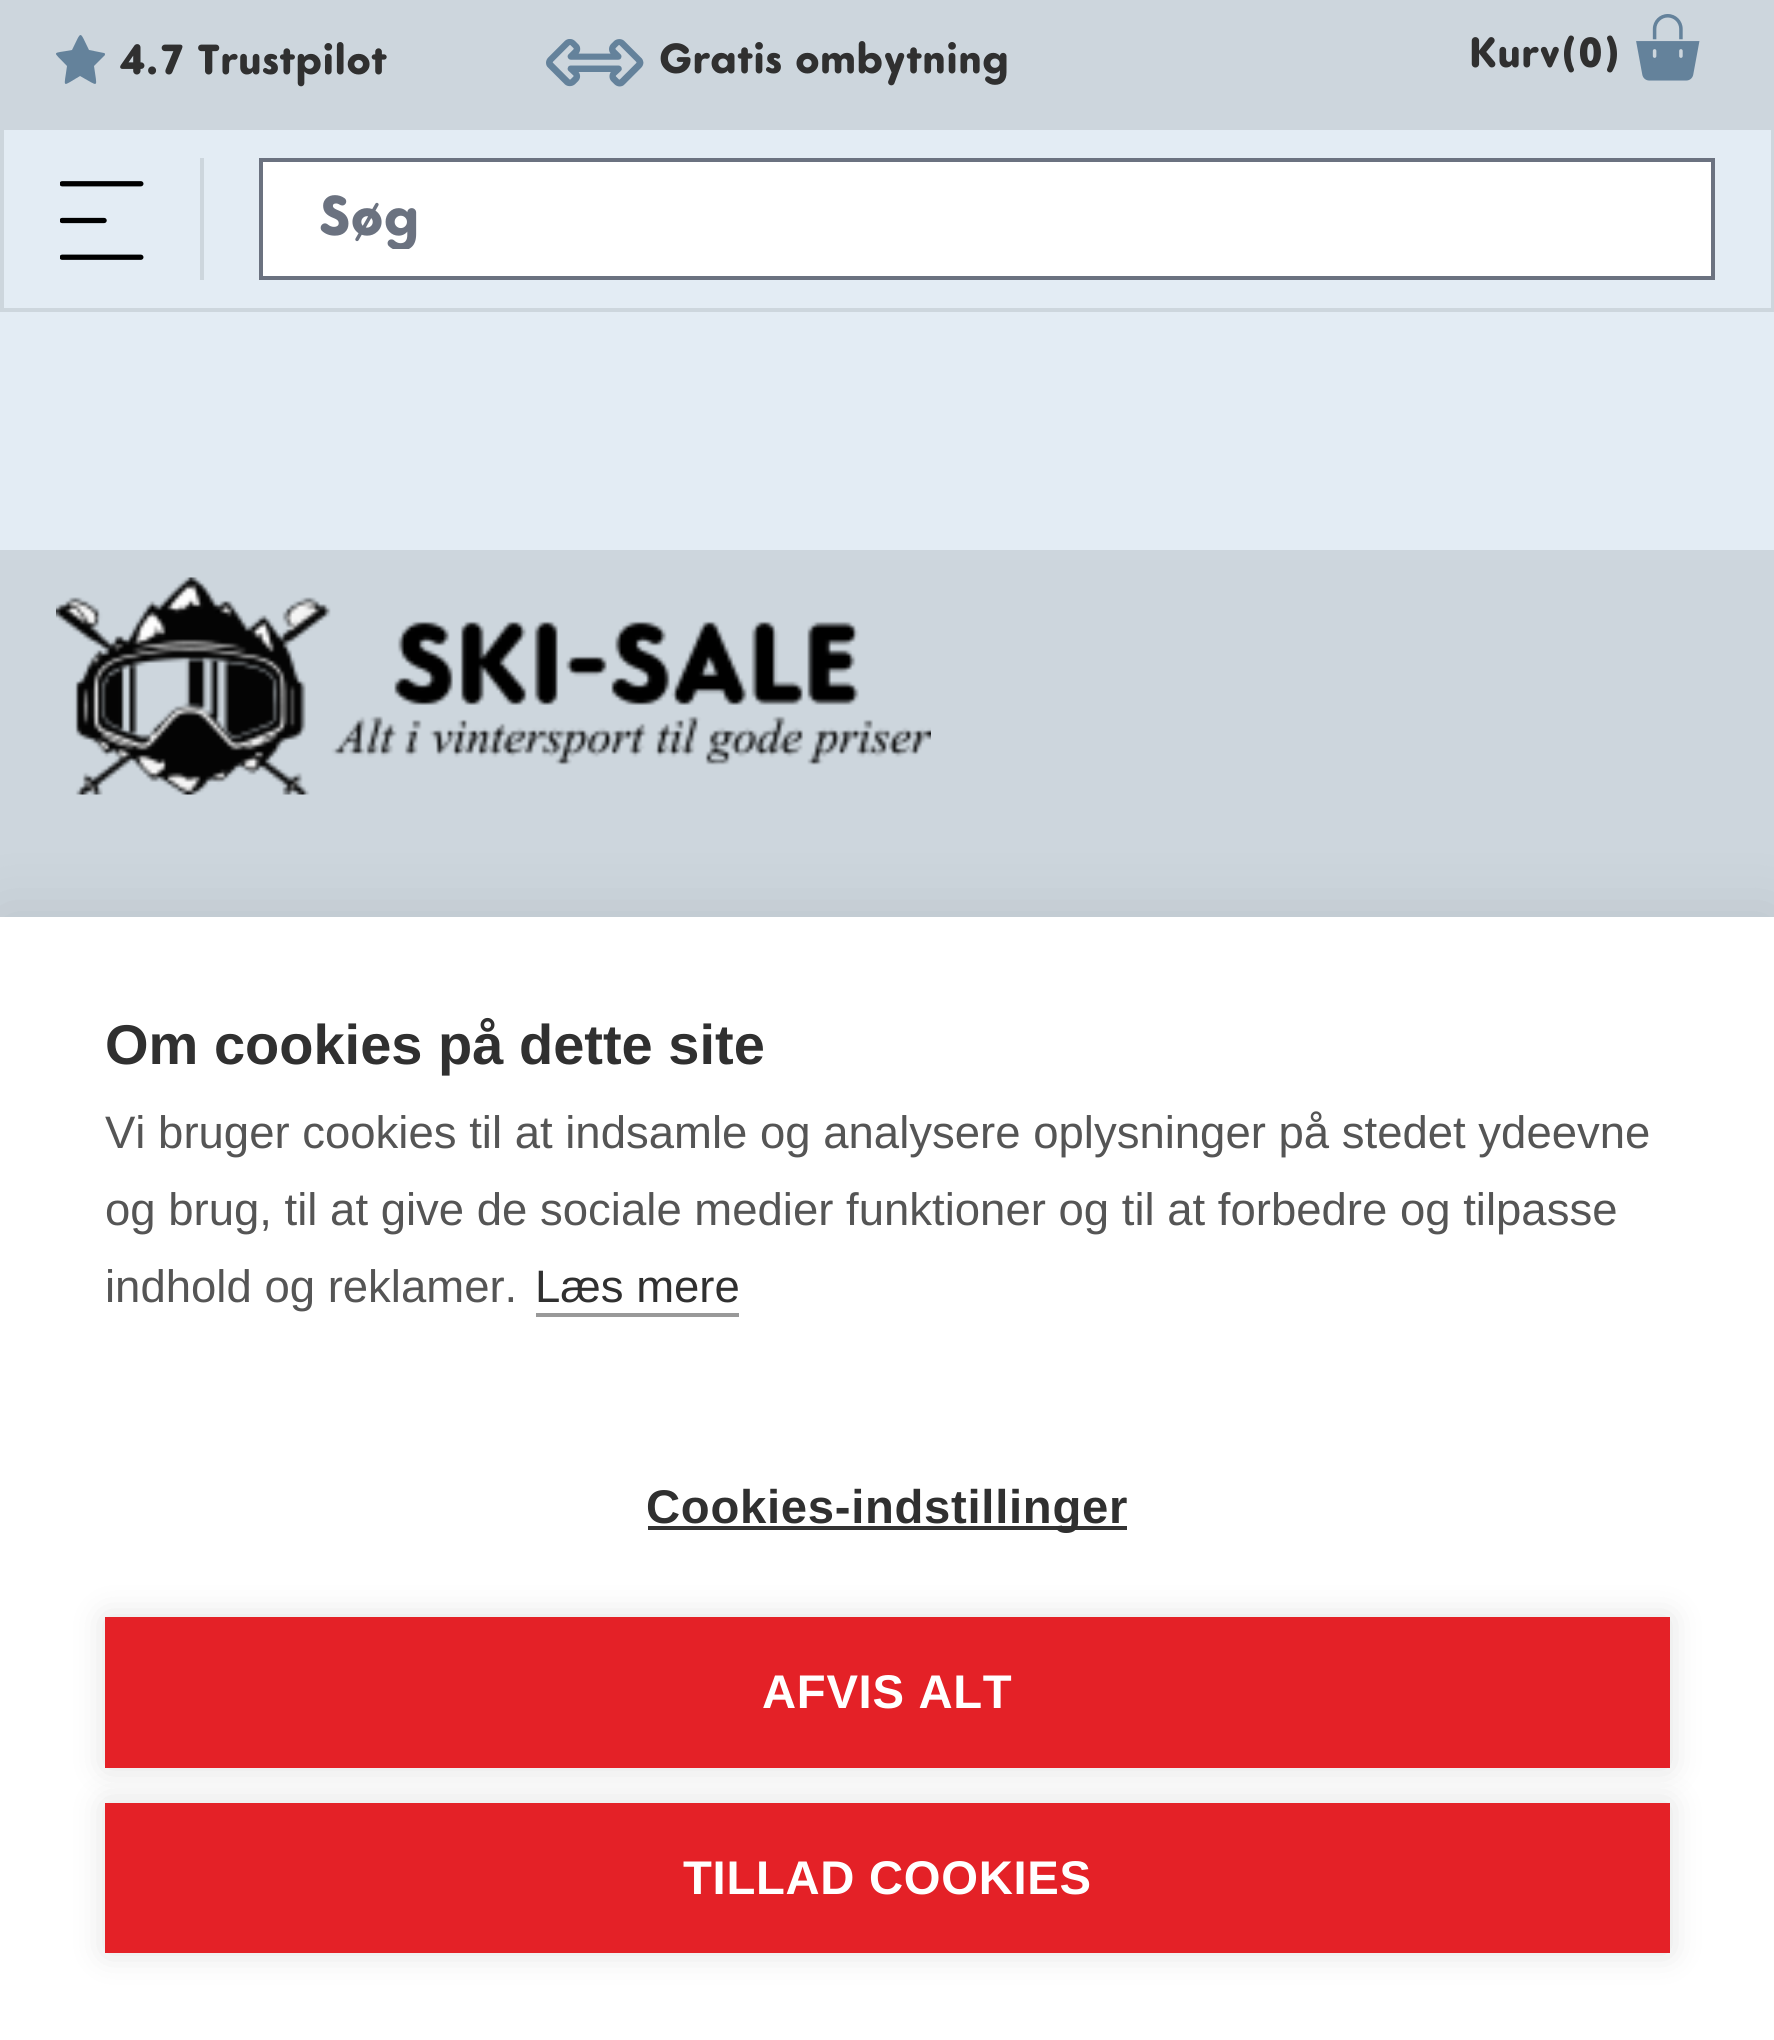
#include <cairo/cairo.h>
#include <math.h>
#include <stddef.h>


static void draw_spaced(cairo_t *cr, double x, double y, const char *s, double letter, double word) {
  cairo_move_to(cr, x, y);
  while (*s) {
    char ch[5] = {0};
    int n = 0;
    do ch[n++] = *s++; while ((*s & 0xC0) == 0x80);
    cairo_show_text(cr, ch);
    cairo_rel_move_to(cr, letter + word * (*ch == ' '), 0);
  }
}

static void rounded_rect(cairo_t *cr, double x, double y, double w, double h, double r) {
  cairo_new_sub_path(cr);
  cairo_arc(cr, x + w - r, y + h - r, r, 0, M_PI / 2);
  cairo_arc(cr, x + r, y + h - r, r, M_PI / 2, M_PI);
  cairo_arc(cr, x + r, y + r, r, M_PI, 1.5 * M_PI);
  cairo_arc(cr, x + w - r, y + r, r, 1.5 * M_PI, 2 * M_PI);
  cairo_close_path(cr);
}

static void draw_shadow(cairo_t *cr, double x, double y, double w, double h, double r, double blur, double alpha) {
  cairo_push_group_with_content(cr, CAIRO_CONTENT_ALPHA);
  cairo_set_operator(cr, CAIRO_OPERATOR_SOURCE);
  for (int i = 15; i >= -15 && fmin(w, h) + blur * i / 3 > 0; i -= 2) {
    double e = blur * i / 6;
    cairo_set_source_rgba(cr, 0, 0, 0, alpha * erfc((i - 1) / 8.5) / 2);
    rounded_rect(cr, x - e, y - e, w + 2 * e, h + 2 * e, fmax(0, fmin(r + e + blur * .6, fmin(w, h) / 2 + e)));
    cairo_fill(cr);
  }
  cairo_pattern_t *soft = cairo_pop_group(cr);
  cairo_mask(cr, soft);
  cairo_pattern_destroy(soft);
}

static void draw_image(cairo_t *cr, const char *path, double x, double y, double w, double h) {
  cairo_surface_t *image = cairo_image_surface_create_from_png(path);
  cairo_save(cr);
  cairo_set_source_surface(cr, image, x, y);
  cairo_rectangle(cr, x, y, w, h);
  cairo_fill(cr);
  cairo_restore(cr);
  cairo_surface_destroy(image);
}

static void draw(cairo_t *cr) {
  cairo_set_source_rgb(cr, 227 / 255.0, 236 / 255.0, 244 / 255.0);
  cairo_paint(cr);
  cairo_set_source_rgb(cr, 205 / 255.0, 214 / 255.0, 221 / 255.0);
  cairo_rectangle(cr, 0, 0, 1774, 126);
  cairo_fill(cr);
  cairo_set_source_rgb(cr, 100 / 255.0, 130 / 255.0, 155 / 255.0);
  cairo_new_path(cr);
  cairo_move_to(cr, 104, 53);
  cairo_line_to(cr, 89, 50);
  cairo_curve_to(cr, 79, 30, 82, 30, 72, 50);
  cairo_curve_to(cr, 51, 54, 52, 50, 67, 66);
  cairo_curve_to(cr, 64, 89, 61, 87, 80, 76);
  cairo_curve_to(cr, 100, 87, 97, 89, 94, 66);
  cairo_line_to(cr, 105, 55);
  cairo_curve_to(cr, 105, 54, 105, 53, 104, 53);
  cairo_close_path(cr);
  cairo_fill(cr);
  draw_image(cr, "images/1.png", 546, 39, 98, 48);
  draw_image(cr, "images/2.png", 1636, 14, 64, 67);
  cairo_rectangle(cr, 2, 128, 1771, 182);
  cairo_set_source_rgb(cr, 205 / 255.0, 214 / 255.0, 221 / 255.0);
  cairo_set_line_width(cr, 4);
  cairo_stroke(cr);
  cairo_rectangle(cr, 200, 158, 4, 122);
  cairo_fill(cr);
  draw_image(cr, "images/3.png", 60, 181, 84, 79);
  cairo_set_source_rgb(cr, 1, 1, 1);
  cairo_rectangle(cr, 261, 160, 1452, 118);
  cairo_fill_preserve(cr);
  cairo_set_source_rgb(cr, 107 / 255.0, 114 / 255.0, 128 / 255.0);
  cairo_stroke(cr);
  cairo_set_source_rgb(cr, 205 / 255.0, 214 / 255.0, 221 / 255.0);
  cairo_rectangle(cr, 0, 550, 1774, 367);
  cairo_fill(cr);
  draw_image(cr, "images/4.png", 56, 577, 875, 218);
  cairo_set_source_rgb(cr, 0, 0, 0);
  draw_shadow(cr, 0, 917, 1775, 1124, 0, 35, 0.1);
  cairo_set_source_rgb(cr, 1, 1, 1);
  cairo_rectangle(cr, 0, 917, 1774, 1123);
  cairo_fill(cr);
  cairo_set_source_rgb(cr, 153 / 255.0, 153 / 255.0, 153 / 255.0);
  cairo_rectangle(cr, 536, 1313, 203, 4);
  cairo_fill(cr);
  cairo_set_source_rgb(cr, 51 / 255.0, 51 / 255.0, 51 / 255.0);
  cairo_rectangle(cr, 648, 1526, 479, 4);
  cairo_fill(cr);
  cairo_set_source_rgb(cr, 0, 0, 0);
  draw_shadow(cr, 105, 1617, 1565, 151, 0, 17.5, 0.12);
  cairo_set_source_rgb(cr, 228 / 255.0, 33 / 255.0, 39 / 255.0);
  cairo_rectangle(cr, 105, 1617, 1565, 151);
  cairo_fill(cr);
  cairo_set_source_rgb(cr, 0, 0, 0);
  draw_shadow(cr, 105, 1803, 1565, 150, 0, 17.5, 0.12);
  cairo_set_source_rgb(cr, 228 / 255.0, 33 / 255.0, 39 / 255.0);
  cairo_rectangle(cr, 105, 1803, 1565, 150);
  cairo_fill(cr);
  cairo_select_font_face(cr, "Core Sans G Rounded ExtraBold", CAIRO_FONT_SLANT_NORMAL, CAIRO_FONT_WEIGHT_NORMAL);
  cairo_set_font_size(cr, 42);
  cairo_set_source_rgb(cr, 48 / 255.0, 48 / 255.0, 48 / 255.0);
  cairo_move_to(cr, 119, 74);
  cairo_show_text(cr, "4.7 Trustpilot");
  cairo_move_to(cr, 659, 73);
  cairo_show_text(cr, "Gratis ombytning");
  cairo_move_to(cr, 1469, 67);
  cairo_show_text(cr, "Kurv(0)");
  cairo_save(cr);
  cairo_rectangle(cr, 319, 189, 1284, 60);
  cairo_clip(cr);
  cairo_set_font_size(cr, 56);
  cairo_set_source_rgb(cr, 107 / 255.0, 114 / 255.0, 128 / 255.0);
  cairo_move_to(cr, 319, 235);
  cairo_show_text(cr, "Søg");
  cairo_restore(cr);
  cairo_select_font_face(cr, "Liberation Sans", CAIRO_FONT_SLANT_NORMAL, CAIRO_FONT_WEIGHT_BOLD);
  cairo_set_font_size(cr, 56);
  cairo_move_to(cr, 105, 1064);
  cairo_show_text(cr, "Om cookies på dette site");
  cairo_select_font_face(cr, "Liberation Sans", CAIRO_FONT_SLANT_NORMAL, CAIRO_FONT_WEIGHT_NORMAL);
  cairo_set_font_size(cr, 45.5);
  cairo_set_source_rgb(cr, 85 / 255.0, 85 / 255.0, 85 / 255.0);
  cairo_move_to(cr, 105, 1148);
  cairo_show_text(cr, "Vi bruger cookies til at indsamle og analysere oplysninger på stedet ydeevne");
  cairo_move_to(cr, 105, 1225);
  cairo_show_text(cr, "og brug, til at give de sociale medier funktioner og til at forbedre og tilpasse");
  cairo_move_to(cr, 105, 1302);
  cairo_show_text(cr, "indhold og reklamer.");
  cairo_set_source_rgb(cr, 48 / 255.0, 48 / 255.0, 48 / 255.0);
  cairo_move_to(cr, 535, 1302);
  cairo_show_text(cr, "Læs mere");
  cairo_select_font_face(cr, "Liberation Sans", CAIRO_FONT_SLANT_NORMAL, CAIRO_FONT_WEIGHT_BOLD);
  cairo_set_font_size(cr, 47.25);
  draw_spaced(cr, 646, 1523, "Cookies-indstillinger", 0.7, 0);
  cairo_set_source_rgb(cr, 1, 1, 1);
  draw_spaced(cr, 762, 1708, "AFVIS ALT", 0.7, 0);
  draw_spaced(cr, 683, 1894, "TILLAD COOKIES", 0.7, 0);
}

int main(void) {
  cairo_surface_t *surface = cairo_image_surface_create(CAIRO_FORMAT_RGB24, 1774, 2040);
  cairo_t *cr = cairo_create(surface);
  cairo_font_options_t *options = cairo_font_options_create();
  cairo_font_options_set_hint_metrics(options, CAIRO_HINT_METRICS_OFF);
  cairo_font_options_set_hint_style(options, CAIRO_HINT_STYLE_NONE);
  cairo_set_font_options(cr, options);
  cairo_set_miter_limit(cr, 4);
  draw(cr);
  cairo_surface_write_to_png(surface, "out.png");
  cairo_font_options_destroy(options);
  cairo_destroy(cr);
  cairo_surface_destroy(surface);
  return 0;
}
